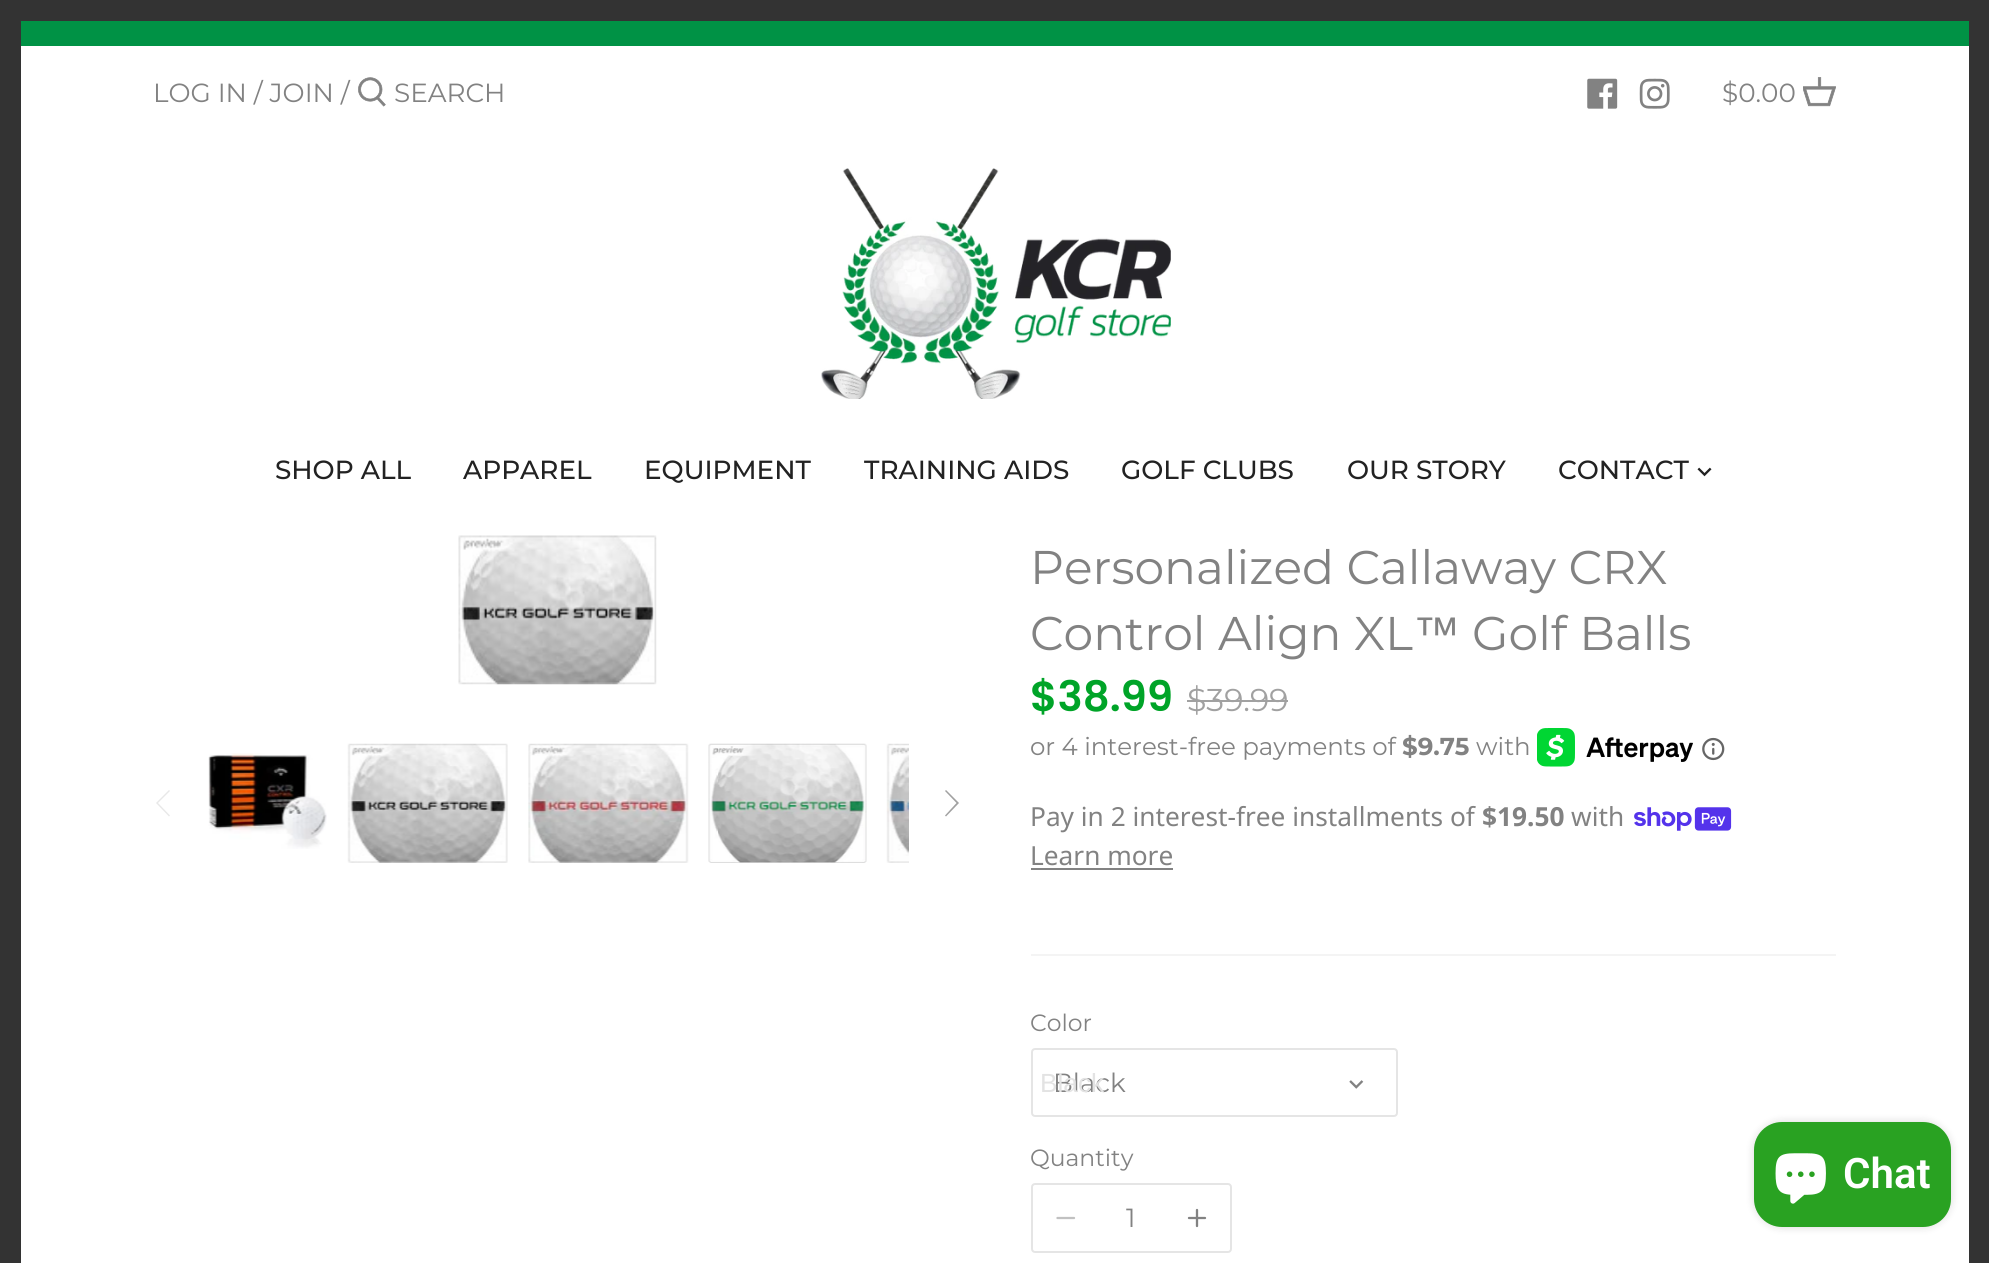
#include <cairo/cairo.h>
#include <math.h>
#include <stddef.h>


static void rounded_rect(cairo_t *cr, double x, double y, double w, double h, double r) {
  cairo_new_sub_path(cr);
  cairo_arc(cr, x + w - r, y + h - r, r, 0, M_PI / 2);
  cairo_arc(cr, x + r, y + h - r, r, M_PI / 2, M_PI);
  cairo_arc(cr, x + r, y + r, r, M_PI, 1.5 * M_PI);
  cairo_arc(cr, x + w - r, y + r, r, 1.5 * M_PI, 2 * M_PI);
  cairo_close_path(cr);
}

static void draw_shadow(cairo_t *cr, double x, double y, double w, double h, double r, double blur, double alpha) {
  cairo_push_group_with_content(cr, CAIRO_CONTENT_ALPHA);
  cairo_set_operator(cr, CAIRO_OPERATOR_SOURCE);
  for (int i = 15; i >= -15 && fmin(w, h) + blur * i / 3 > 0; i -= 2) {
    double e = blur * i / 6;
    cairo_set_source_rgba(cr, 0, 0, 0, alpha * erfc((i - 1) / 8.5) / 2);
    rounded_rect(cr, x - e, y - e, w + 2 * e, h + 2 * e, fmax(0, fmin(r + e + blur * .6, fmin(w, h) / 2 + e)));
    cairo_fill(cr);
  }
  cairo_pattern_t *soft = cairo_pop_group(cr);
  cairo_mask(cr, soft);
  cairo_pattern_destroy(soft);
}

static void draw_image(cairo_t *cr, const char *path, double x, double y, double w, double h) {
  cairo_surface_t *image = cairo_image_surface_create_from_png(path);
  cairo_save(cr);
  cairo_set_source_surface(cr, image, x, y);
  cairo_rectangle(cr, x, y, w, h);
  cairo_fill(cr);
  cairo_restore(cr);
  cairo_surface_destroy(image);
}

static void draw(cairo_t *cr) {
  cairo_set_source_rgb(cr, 1, 1, 1);
  cairo_paint(cr);
  cairo_rectangle(cr, 10.5, 10.5, 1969, 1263);
  cairo_set_source_rgb(cr, 51 / 255.0, 51 / 255.0, 51 / 255.0);
  cairo_set_line_width(cr, 21);
  cairo_stroke(cr);
  cairo_set_source_rgb(cr, 0, 146 / 255.0, 69 / 255.0);
  cairo_rectangle(cr, 21, 21, 1948, 25);
  cairo_fill(cr);
  draw_image(cr, "images/1.png", 358, 77, 28, 30);
  draw_image(cr, "images/2.png", 1587, 78, 31, 31);
  draw_image(cr, "images/3.png", 1639, 78, 31, 31);
  draw_image(cr, "images/4.png", 1803, 77, 33, 30);
  draw_image(cr, "images/5.png", 821, 168, 350, 231);
  draw_image(cr, "images/6.png", 1697, 467, 15, 10);
  draw_image(cr, "images/7.png", 458, 535, 199, 150);
  cairo_set_source_rgb(cr, 232 / 255.0, 232 / 255.0, 232 / 255.0);
  cairo_new_path(cr);
  cairo_move_to(cr, 170, 791);
  cairo_line_to(cr, 169, 790);
  cairo_line_to(cr, 156, 803);
  cairo_line_to(cr, 169, 816.5);
  cairo_line_to(cr, 170, 815.5);
  cairo_line_to(cr, 158, 803);
  cairo_close_path(cr);
  cairo_fill(cr);
  draw_image(cr, "images/8.png", 208, 753, 119, 96);
  draw_image(cr, "images/9.png", 347, 743, 161, 120);
  draw_image(cr, "images/10.png", 528, 743, 161, 120);
  draw_image(cr, "images/11.png", 708, 743, 159, 120);
  draw_image(cr, "images/12.png", 886, 743, 23, 120);
  cairo_set_source_rgb(cr, 161 / 255.0, 161 / 255.0, 161 / 255.0);
  cairo_new_path(cr);
  cairo_move_to(cr, 946, 790);
  cairo_line_to(cr, 945, 791);
  cairo_line_to(cr, 956.5, 803);
  cairo_line_to(cr, 945, 815.5);
  cairo_line_to(cr, 946, 816.5);
  cairo_line_to(cr, 959, 803);
  cairo_close_path(cr);
  cairo_fill(cr);
  cairo_set_source_rgb(cr, 244 / 255.0, 244 / 255.0, 244 / 255.0);
  cairo_rectangle(cr, 1031, 954, 805, 2);
  cairo_fill(cr);
  cairo_set_source_rgb(cr, 161 / 255.0, 161 / 255.0, 161 / 255.0);
  cairo_rectangle(cr, 1187, 700, 101, 2);
  cairo_fill(cr);
  draw_image(cr, "images/13.png", 1537, 728, 156, 39);
  draw_image(cr, "images/14.png", 1702, 737, 23, 24);
  draw_image(cr, "images/15.png", 1634, 807, 98, 24);
  cairo_set_source_rgb(cr, 130 / 255.0, 130 / 255.0, 130 / 255.0);
  cairo_rectangle(cr, 1031, 868, 142, 2);
  cairo_fill(cr);
  rounded_rect(cr, 1032, 1049, 365, 67, 3);
  cairo_set_source_rgb(cr, 229 / 255.0, 229 / 255.0, 229 / 255.0);
  cairo_set_line_width(cr, 2);
  cairo_stroke(cr);
  draw_image(cr, "images/16.png", 1349, 1080, 15, 9);
  rounded_rect(cr, 1032, 1184, 199, 68, 3);
  cairo_stroke(cr);
  cairo_new_path(cr);
  cairo_move_to(cr, 1057.5, 1218);
  cairo_line_to(cr, 1074, 1218);
  cairo_set_source_rgb(cr, 193 / 255.0, 193 / 255.0, 193 / 255.0);
  cairo_set_line_width(cr, 2.3);
  cairo_set_line_cap(cr, CAIRO_LINE_CAP_ROUND);
  cairo_set_line_join(cr, CAIRO_LINE_JOIN_ROUND);
  cairo_stroke(cr);
  cairo_new_path(cr);
  cairo_move_to(cr, 1197, 1210);
  cairo_line_to(cr, 1197, 1226);
  cairo_move_to(cr, 1189, 1218);
  cairo_line_to(cr, 1205, 1218);
  cairo_set_source_rgb(cr, 130 / 255.0, 130 / 255.0, 130 / 255.0);
  cairo_stroke(cr);
  cairo_set_source_rgb(cr, 0, 0, 0);
  draw_shadow(cr, 1754, 1122, 197, 105, 28, 4.5, 0.15);
  cairo_set_source_rgb(cr, 41 / 255.0, 162 / 255.0, 34 / 255.0);
  rounded_rect(cr, 1754, 1122, 197, 105, 28);
  cairo_fill(cr);
  draw_image(cr, "images/17.png", 1775, 1153, 51, 51);
  cairo_select_font_face(cr, "Montserrat", CAIRO_FONT_SLANT_NORMAL, CAIRO_FONT_WEIGHT_NORMAL);
  cairo_set_font_size(cr, 26.25);
  cairo_set_source_rgb(cr, 130 / 255.0, 130 / 255.0, 130 / 255.0);
  cairo_move_to(cr, 153, 102);
  cairo_show_text(cr, "LOG IN / JOIN /");
  cairo_move_to(cr, 394, 102);
  cairo_show_text(cr, "SEARCH");
  cairo_move_to(cr, 1722, 102);
  cairo_show_text(cr, "$0.00");
  cairo_select_font_face(cr, "Montserrat Medium", CAIRO_FONT_SLANT_NORMAL, CAIRO_FONT_WEIGHT_NORMAL);
  cairo_set_source_rgb(cr, 34 / 255.0, 34 / 255.0, 34 / 255.0);
  cairo_move_to(cr, 275, 479);
  cairo_show_text(cr, "SHOP ALL");
  cairo_move_to(cr, 463, 479);
  cairo_show_text(cr, "APPAREL");
  cairo_move_to(cr, 644, 479);
  cairo_show_text(cr, "EQUIPMENT");
  cairo_move_to(cr, 864, 479);
  cairo_show_text(cr, "TRAINING AIDS");
  cairo_move_to(cr, 1121, 479);
  cairo_show_text(cr, "GOLF CLUBS");
  cairo_move_to(cr, 1347, 479);
  cairo_show_text(cr, "OUR STORY");
  cairo_move_to(cr, 1558, 479);
  cairo_show_text(cr, "CONTACT");
  cairo_select_font_face(cr, "Montserrat", CAIRO_FONT_SLANT_NORMAL, CAIRO_FONT_WEIGHT_NORMAL);
  cairo_set_font_size(cr, 47.25);
  cairo_set_source_rgb(cr, 130 / 255.0, 130 / 255.0, 130 / 255.0);
  cairo_move_to(cr, 1030, 584);
  cairo_show_text(cr, "Personalized Callaway CRX");
  cairo_move_to(cr, 1030, 650);
  cairo_show_text(cr, "Control Align XL");
  cairo_select_font_face(cr, "Liberation Sans", CAIRO_FONT_SLANT_NORMAL, CAIRO_FONT_WEIGHT_NORMAL);
  cairo_move_to(cr, 1413, 650);
  cairo_show_text(cr, "™");
  cairo_select_font_face(cr, "Montserrat", CAIRO_FONT_SLANT_NORMAL, CAIRO_FONT_WEIGHT_NORMAL);
  cairo_move_to(cr, 1472, 650);
  cairo_show_text(cr, "Golf Balls");
  cairo_select_font_face(cr, "Poppins SemiBold", CAIRO_FONT_SLANT_NORMAL, CAIRO_FONT_WEIGHT_NORMAL);
  cairo_set_font_size(cr, 42);
  cairo_set_source_rgb(cr, 0, 164 / 255.0, 40 / 255.0);
  cairo_move_to(cr, 1030, 711);
  cairo_show_text(cr, "$38.99");
  cairo_select_font_face(cr, "Montserrat", CAIRO_FONT_SLANT_NORMAL, CAIRO_FONT_WEIGHT_NORMAL);
  cairo_set_font_size(cr, 31.5);
  cairo_set_source_rgb(cr, 161 / 255.0, 161 / 255.0, 161 / 255.0);
  cairo_move_to(cr, 1187, 711);
  cairo_show_text(cr, "$39.99");
  cairo_set_font_size(cr, 24.5);
  cairo_set_source_rgb(cr, 130 / 255.0, 130 / 255.0, 130 / 255.0);
  cairo_move_to(cr, 1030, 755);
  cairo_show_text(cr, "or 4 interest-free payments of");
  cairo_select_font_face(cr, "Montserrat", CAIRO_FONT_SLANT_NORMAL, CAIRO_FONT_WEIGHT_BOLD);
  cairo_move_to(cr, 1402, 755);
  cairo_show_text(cr, "$9.75");
  cairo_select_font_face(cr, "Montserrat", CAIRO_FONT_SLANT_NORMAL, CAIRO_FONT_WEIGHT_NORMAL);
  cairo_move_to(cr, 1476, 755);
  cairo_show_text(cr, "with");
  cairo_select_font_face(cr, "Noto Sans", CAIRO_FONT_SLANT_NORMAL, CAIRO_FONT_WEIGHT_NORMAL);
  cairo_set_font_size(cr, 26.25);
  cairo_move_to(cr, 1030, 826);
  cairo_show_text(cr, "Pay in 2 interest-free installments of");
  cairo_select_font_face(cr, "Noto Sans", CAIRO_FONT_SLANT_NORMAL, CAIRO_FONT_WEIGHT_BOLD);
  cairo_move_to(cr, 1482, 826);
  cairo_show_text(cr, "$19.50");
  cairo_select_font_face(cr, "Noto Sans", CAIRO_FONT_SLANT_NORMAL, CAIRO_FONT_WEIGHT_NORMAL);
  cairo_move_to(cr, 1571, 826);
  cairo_show_text(cr, "with");
  cairo_move_to(cr, 1030, 865);
  cairo_show_text(cr, "Learn more");
  cairo_select_font_face(cr, "Montserrat", CAIRO_FONT_SLANT_NORMAL, CAIRO_FONT_WEIGHT_NORMAL);
  cairo_set_font_size(cr, 23.5);
  cairo_move_to(cr, 1030, 1031);
  cairo_show_text(cr, "Color");
  cairo_set_font_size(cr, 26.25);
  cairo_move_to(cr, 1053, 1092);
  cairo_show_text(cr, "Black");
  cairo_select_font_face(cr, "Liberation Sans", CAIRO_FONT_SLANT_NORMAL, CAIRO_FONT_WEIGHT_NORMAL);
  cairo_set_source_rgb(cr, 227 / 255.0, 227 / 255.0, 227 / 255.0);
  cairo_move_to(cr, 1040, 1092);
  cairo_show_text(cr, "Black");
  cairo_select_font_face(cr, "Montserrat", CAIRO_FONT_SLANT_NORMAL, CAIRO_FONT_WEIGHT_NORMAL);
  cairo_set_font_size(cr, 23.5);
  cairo_set_source_rgb(cr, 130 / 255.0, 130 / 255.0, 130 / 255.0);
  cairo_move_to(cr, 1030, 1166);
  cairo_show_text(cr, "Quantity");
  cairo_set_font_size(cr, 26.25);
  cairo_move_to(cr, 1126, 1227);
  cairo_show_text(cr, "1");
  cairo_select_font_face(cr, "Roboto SemiBold", CAIRO_FONT_SLANT_NORMAL, CAIRO_FONT_WEIGHT_NORMAL);
  cairo_set_font_size(cr, 42);
  cairo_set_source_rgb(cr, 1, 1, 1);
  cairo_move_to(cr, 1843, 1188);
  cairo_show_text(cr, "Chat");
}

int main(void) {
  cairo_surface_t *surface = cairo_image_surface_create(CAIRO_FORMAT_RGB24, 1989, 1263);
  cairo_t *cr = cairo_create(surface);
  cairo_font_options_t *options = cairo_font_options_create();
  cairo_font_options_set_hint_metrics(options, CAIRO_HINT_METRICS_OFF);
  cairo_font_options_set_hint_style(options, CAIRO_HINT_STYLE_NONE);
  cairo_set_font_options(cr, options);
  cairo_set_miter_limit(cr, 4);
  draw(cr);
  cairo_surface_write_to_png(surface, "out.png");
  cairo_font_options_destroy(options);
  cairo_destroy(cr);
  cairo_surface_destroy(surface);
  return 0;
}
